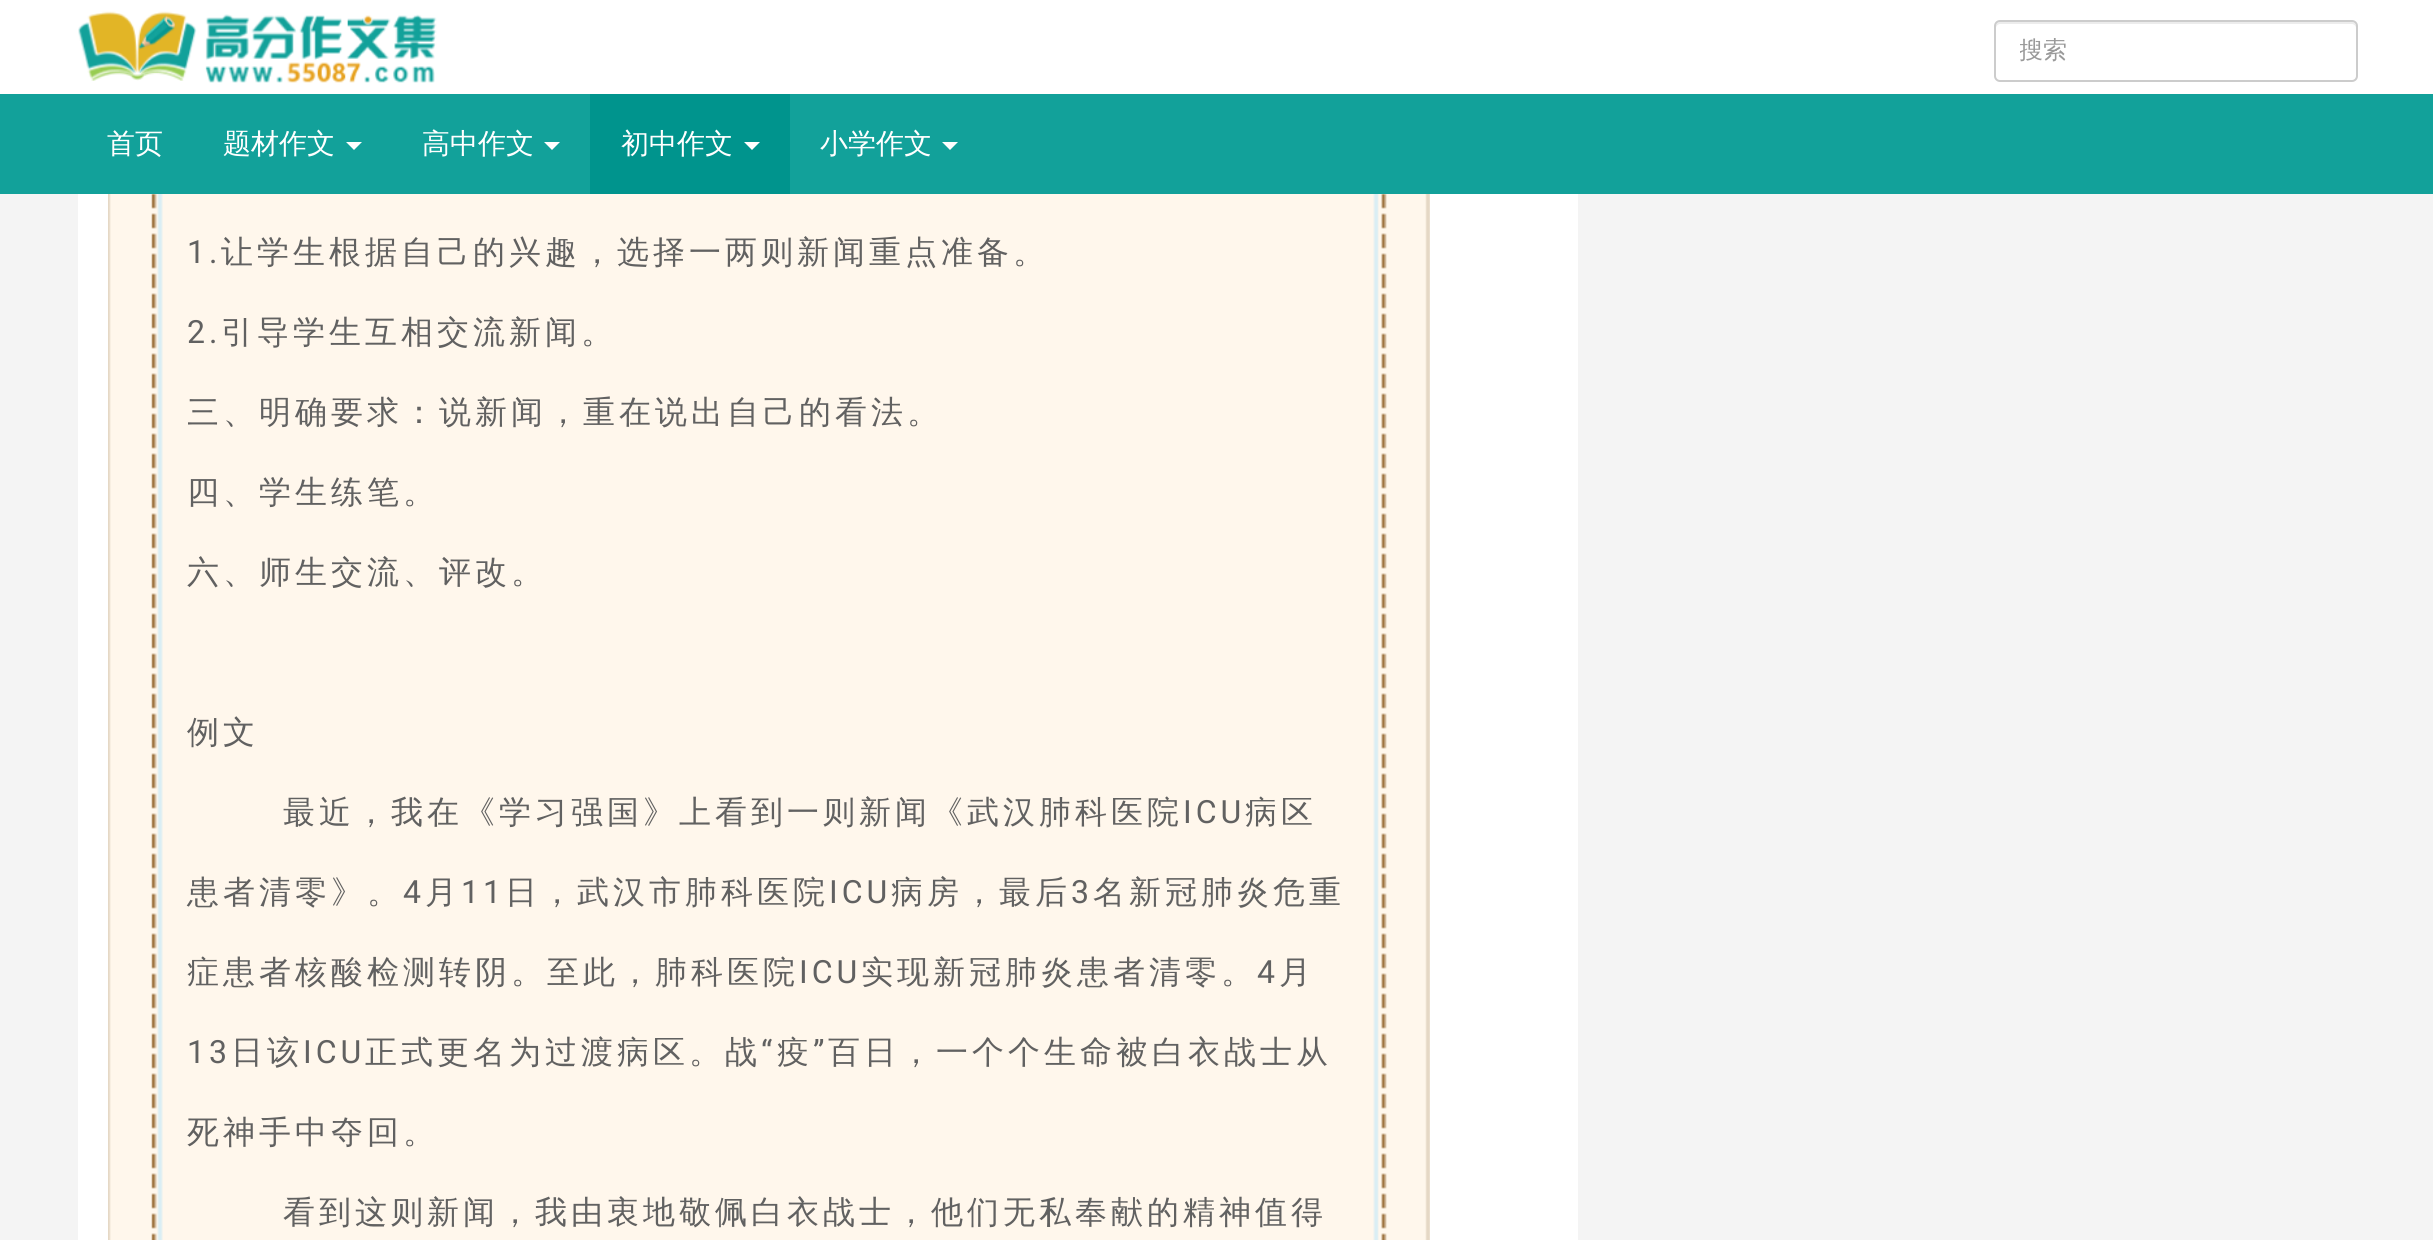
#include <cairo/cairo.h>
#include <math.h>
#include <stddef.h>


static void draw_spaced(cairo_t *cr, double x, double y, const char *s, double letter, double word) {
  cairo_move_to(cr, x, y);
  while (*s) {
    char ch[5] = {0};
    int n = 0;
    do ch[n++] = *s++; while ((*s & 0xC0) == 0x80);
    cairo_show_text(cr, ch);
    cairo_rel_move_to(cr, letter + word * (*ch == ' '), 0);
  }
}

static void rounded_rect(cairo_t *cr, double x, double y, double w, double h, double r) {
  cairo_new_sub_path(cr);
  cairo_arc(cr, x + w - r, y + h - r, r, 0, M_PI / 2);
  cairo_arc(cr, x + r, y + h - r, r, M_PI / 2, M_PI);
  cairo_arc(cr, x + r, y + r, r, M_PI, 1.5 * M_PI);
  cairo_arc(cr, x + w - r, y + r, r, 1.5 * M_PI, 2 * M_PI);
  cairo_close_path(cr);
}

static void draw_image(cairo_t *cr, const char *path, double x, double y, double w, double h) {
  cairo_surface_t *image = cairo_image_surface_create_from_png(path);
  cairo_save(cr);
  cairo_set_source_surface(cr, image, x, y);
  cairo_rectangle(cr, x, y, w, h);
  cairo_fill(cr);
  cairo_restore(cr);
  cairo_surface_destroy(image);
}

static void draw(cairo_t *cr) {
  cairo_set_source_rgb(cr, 244 / 255.0, 244 / 255.0, 244 / 255.0);
  cairo_paint(cr);
  cairo_set_source_rgb(cr, 18 / 255.0, 161 / 255.0, 154 / 255.0);
  cairo_rectangle(cr, 0, 94, 2433, 100);
  cairo_fill(cr);
  cairo_set_source_rgb(cr, 1, 1, 1);
  cairo_rectangle(cr, 0, 0, 2433, 94);
  cairo_fill(cr);
  draw_image(cr, "images/1.png", 78, 11, 359, 72);
  cairo_set_source_rgb(cr, 236 / 255.0, 236 / 255.0, 236 / 255.0);
  cairo_new_path(cr);
  cairo_move_to(cr, 2000, 24);
  cairo_line_to(cr, 2352, 24);
  cairo_curve_to(cr, 2354, 24, 2356, 26, 2356, 28);
  cairo_line_to(cr, 2356, 26);
  cairo_curve_to(cr, 2356, 24, 2354, 22, 2352, 22);
  cairo_line_to(cr, 2000, 22);
  cairo_curve_to(cr, 1998, 22, 1996, 24, 1996, 26);
  cairo_line_to(cr, 1996, 28);
  cairo_curve_to(cr, 1996, 26, 1998, 24, 2000, 24);
  cairo_close_path(cr);
  cairo_fill(cr);
  rounded_rect(cr, 1995, 21, 362, 60, 5);
  cairo_set_source_rgb(cr, 204 / 255.0, 204 / 255.0, 204 / 255.0);
  cairo_stroke(cr);
  cairo_set_source_rgb(cr, 1, 1, 1);
  cairo_new_path(cr);
  cairo_move_to(cr, 346, 142);
  cairo_line_to(cr, 362, 142);
  cairo_line_to(cr, 354, 150);
  cairo_close_path(cr);
  cairo_fill(cr);
  cairo_new_path(cr);
  cairo_move_to(cr, 544, 142);
  cairo_line_to(cr, 560, 142);
  cairo_line_to(cr, 552, 150);
  cairo_close_path(cr);
  cairo_fill(cr);
  cairo_set_source_rgb(cr, 0, 148 / 255.0, 141 / 255.0);
  cairo_rectangle(cr, 590, 94, 200, 100);
  cairo_fill(cr);
  cairo_set_source_rgb(cr, 1, 1, 1);
  cairo_new_path(cr);
  cairo_move_to(cr, 744, 142);
  cairo_line_to(cr, 760, 142);
  cairo_line_to(cr, 752, 150);
  cairo_close_path(cr);
  cairo_fill(cr);
  cairo_new_path(cr);
  cairo_move_to(cr, 942, 142);
  cairo_line_to(cr, 958, 142);
  cairo_line_to(cr, 950, 150);
  cairo_close_path(cr);
  cairo_fill(cr);
  cairo_rectangle(cr, 78, 194, 1500, 1046);
  cairo_fill(cr);
  draw_image(cr, "images/2.png", 108, 194, 1322, 1046);
  cairo_save(cr);
  cairo_rectangle(cr, 2020, 34, 312, 34);
  cairo_clip(cr);
  cairo_select_font_face(cr, "WenQuanYi Zen Hei Medium", CAIRO_FONT_SLANT_NORMAL, CAIRO_FONT_WEIGHT_NORMAL);
  cairo_set_font_size(cr, 24);
  cairo_set_source_rgb(cr, 153 / 255.0, 153 / 255.0, 153 / 255.0);
  cairo_move_to(cr, 2019, 58);
  cairo_show_text(cr, "搜索");
  cairo_restore(cr);
  cairo_select_font_face(cr, "WenQuanYi Zen Hei Medium", CAIRO_FONT_SLANT_NORMAL, CAIRO_FONT_WEIGHT_NORMAL);
  cairo_set_font_size(cr, 28);
  cairo_move_to(cr, 107, 153);
  cairo_show_text(cr, "首页");
  cairo_move_to(cr, 223, 153);
  cairo_show_text(cr, "题材作文");
  cairo_move_to(cr, 422, 153);
  cairo_show_text(cr, "高中作文");
  cairo_move_to(cr, 621, 153);
  cairo_show_text(cr, "初中作文");
  cairo_move_to(cr, 820, 153);
  cairo_show_text(cr, "小学作文");
  cairo_select_font_face(cr, "Roboto", CAIRO_FONT_SLANT_NORMAL, CAIRO_FONT_WEIGHT_NORMAL);
  cairo_set_font_size(cr, 32);
  cairo_set_source_rgb(cr, 97 / 255.0, 97 / 255.0, 97 / 255.0);
  draw_spaced(cr, 187, 263, "1.", 4, 0);
  cairo_select_font_face(cr, "WenQuanYi Zen Hei Medium", CAIRO_FONT_SLANT_NORMAL, CAIRO_FONT_WEIGHT_NORMAL);
  draw_spaced(cr, 221, 263, "让学生根据自己的兴趣，选择一两则新闻重点准备。", 4, 0);
  cairo_select_font_face(cr, "Roboto", CAIRO_FONT_SLANT_NORMAL, CAIRO_FONT_WEIGHT_NORMAL);
  draw_spaced(cr, 187, 343, "2.", 4, 0);
  cairo_select_font_face(cr, "WenQuanYi Zen Hei Medium", CAIRO_FONT_SLANT_NORMAL, CAIRO_FONT_WEIGHT_NORMAL);
  draw_spaced(cr, 221, 343, "引导学生互相交流新闻。", 4, 0);
  draw_spaced(cr, 187, 423, "三、明确要求：说新闻，重在说出自己的看法。", 4, 0);
  draw_spaced(cr, 187, 503, "四、学生练笔。", 4, 0);
  draw_spaced(cr, 187, 583, "六、师生交流、评改。", 4, 0);
  draw_spaced(cr, 187, 743, "例文", 4, 0);
  draw_spaced(cr, 283, 823, "最近，我在《学习强国》上看到一则新闻《武汉肺科医院", 4, 0);
  cairo_select_font_face(cr, "Roboto", CAIRO_FONT_SLANT_NORMAL, CAIRO_FONT_WEIGHT_NORMAL);
  draw_spaced(cr, 1183, 823, "ICU", 4, 0);
  cairo_select_font_face(cr, "WenQuanYi Zen Hei Medium", CAIRO_FONT_SLANT_NORMAL, CAIRO_FONT_WEIGHT_NORMAL);
  draw_spaced(cr, 1245, 823, "病区", 4, 0);
  draw_spaced(cr, 187, 903, "患者清零》。", 4, 0);
  cairo_select_font_face(cr, "Roboto", CAIRO_FONT_SLANT_NORMAL, CAIRO_FONT_WEIGHT_NORMAL);
  draw_spaced(cr, 403, 903, "4", 4, 0);
  cairo_select_font_face(cr, "WenQuanYi Zen Hei Medium", CAIRO_FONT_SLANT_NORMAL, CAIRO_FONT_WEIGHT_NORMAL);
  draw_spaced(cr, 425, 903, "月", 4, 0);
  cairo_select_font_face(cr, "Roboto", CAIRO_FONT_SLANT_NORMAL, CAIRO_FONT_WEIGHT_NORMAL);
  draw_spaced(cr, 461, 903, "11", 4, 0);
  cairo_select_font_face(cr, "WenQuanYi Zen Hei Medium", CAIRO_FONT_SLANT_NORMAL, CAIRO_FONT_WEIGHT_NORMAL);
  draw_spaced(cr, 505, 903, "日，武汉市肺科医院", 4, 0);
  cairo_select_font_face(cr, "Roboto", CAIRO_FONT_SLANT_NORMAL, CAIRO_FONT_WEIGHT_NORMAL);
  draw_spaced(cr, 829, 903, "ICU", 4, 0);
  cairo_select_font_face(cr, "WenQuanYi Zen Hei Medium", CAIRO_FONT_SLANT_NORMAL, CAIRO_FONT_WEIGHT_NORMAL);
  draw_spaced(cr, 891, 903, "病房，最后", 4, 0);
  cairo_select_font_face(cr, "Roboto", CAIRO_FONT_SLANT_NORMAL, CAIRO_FONT_WEIGHT_NORMAL);
  draw_spaced(cr, 1071, 903, "3", 4, 0);
  cairo_select_font_face(cr, "WenQuanYi Zen Hei Medium", CAIRO_FONT_SLANT_NORMAL, CAIRO_FONT_WEIGHT_NORMAL);
  draw_spaced(cr, 1093, 903, "名新冠肺炎危重", 4, 0);
  draw_spaced(cr, 187, 983, "症患者核酸检测转阴。至此，肺科医院", 4, 0);
  cairo_select_font_face(cr, "Roboto", CAIRO_FONT_SLANT_NORMAL, CAIRO_FONT_WEIGHT_NORMAL);
  draw_spaced(cr, 799, 983, "ICU", 4, 0);
  cairo_select_font_face(cr, "WenQuanYi Zen Hei Medium", CAIRO_FONT_SLANT_NORMAL, CAIRO_FONT_WEIGHT_NORMAL);
  draw_spaced(cr, 861, 983, "实现新冠肺炎患者清零。", 4, 0);
  cairo_select_font_face(cr, "Roboto", CAIRO_FONT_SLANT_NORMAL, CAIRO_FONT_WEIGHT_NORMAL);
  draw_spaced(cr, 1257, 983, "4", 4, 0);
  cairo_select_font_face(cr, "WenQuanYi Zen Hei Medium", CAIRO_FONT_SLANT_NORMAL, CAIRO_FONT_WEIGHT_NORMAL);
  draw_spaced(cr, 1279, 983, "月", 4, 0);
  cairo_select_font_face(cr, "Roboto", CAIRO_FONT_SLANT_NORMAL, CAIRO_FONT_WEIGHT_NORMAL);
  draw_spaced(cr, 187, 1063, "13", 4, 0);
  cairo_select_font_face(cr, "WenQuanYi Zen Hei Medium", CAIRO_FONT_SLANT_NORMAL, CAIRO_FONT_WEIGHT_NORMAL);
  draw_spaced(cr, 231, 1063, "日该", 4, 0);
  cairo_select_font_face(cr, "Roboto", CAIRO_FONT_SLANT_NORMAL, CAIRO_FONT_WEIGHT_NORMAL);
  draw_spaced(cr, 303, 1063, "ICU", 4, 0);
  cairo_select_font_face(cr, "WenQuanYi Zen Hei Medium", CAIRO_FONT_SLANT_NORMAL, CAIRO_FONT_WEIGHT_NORMAL);
  draw_spaced(cr, 365, 1063, "正式更名为过渡病区。战", 4, 0);
  cairo_select_font_face(cr, "Roboto", CAIRO_FONT_SLANT_NORMAL, CAIRO_FONT_WEIGHT_NORMAL);
  draw_spaced(cr, 761, 1063, "“", 4, 0);
  cairo_select_font_face(cr, "WenQuanYi Zen Hei Medium", CAIRO_FONT_SLANT_NORMAL, CAIRO_FONT_WEIGHT_NORMAL);
  draw_spaced(cr, 777, 1063, "疫", 4, 0);
  cairo_select_font_face(cr, "Roboto", CAIRO_FONT_SLANT_NORMAL, CAIRO_FONT_WEIGHT_NORMAL);
  draw_spaced(cr, 813, 1063, "”", 4, 0);
  cairo_select_font_face(cr, "WenQuanYi Zen Hei Medium", CAIRO_FONT_SLANT_NORMAL, CAIRO_FONT_WEIGHT_NORMAL);
  draw_spaced(cr, 828, 1063, "百日，一个个生命被白衣战士从", 4, 0);
  draw_spaced(cr, 187, 1143, "死神手中夺回。", 4, 0);
  draw_spaced(cr, 283, 1223, "看到这则新闻，我由衷地敬佩白衣战士，他们无私奉献的精神值得", 4, 0);
}

int main(void) {
  cairo_surface_t *surface = cairo_image_surface_create(CAIRO_FORMAT_RGB24, 2433, 1240);
  cairo_t *cr = cairo_create(surface);
  cairo_font_options_t *options = cairo_font_options_create();
  cairo_font_options_set_hint_metrics(options, CAIRO_HINT_METRICS_OFF);
  cairo_font_options_set_hint_style(options, CAIRO_HINT_STYLE_NONE);
  cairo_set_font_options(cr, options);
  cairo_set_miter_limit(cr, 4);
  draw(cr);
  cairo_surface_write_to_png(surface, "out.png");
  cairo_font_options_destroy(options);
  cairo_destroy(cr);
  cairo_surface_destroy(surface);
  return 0;
}
